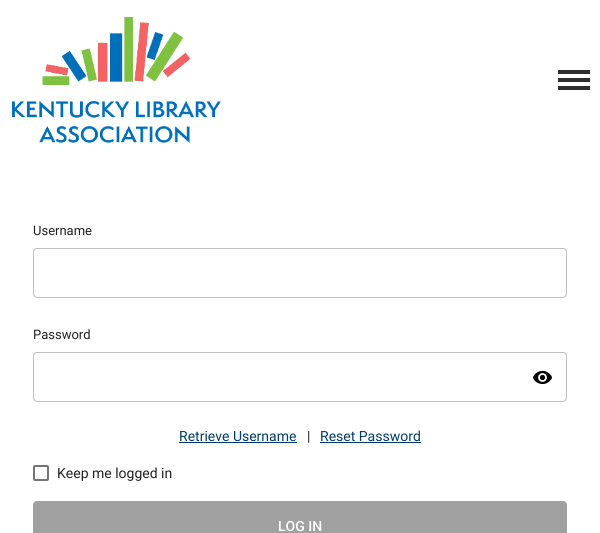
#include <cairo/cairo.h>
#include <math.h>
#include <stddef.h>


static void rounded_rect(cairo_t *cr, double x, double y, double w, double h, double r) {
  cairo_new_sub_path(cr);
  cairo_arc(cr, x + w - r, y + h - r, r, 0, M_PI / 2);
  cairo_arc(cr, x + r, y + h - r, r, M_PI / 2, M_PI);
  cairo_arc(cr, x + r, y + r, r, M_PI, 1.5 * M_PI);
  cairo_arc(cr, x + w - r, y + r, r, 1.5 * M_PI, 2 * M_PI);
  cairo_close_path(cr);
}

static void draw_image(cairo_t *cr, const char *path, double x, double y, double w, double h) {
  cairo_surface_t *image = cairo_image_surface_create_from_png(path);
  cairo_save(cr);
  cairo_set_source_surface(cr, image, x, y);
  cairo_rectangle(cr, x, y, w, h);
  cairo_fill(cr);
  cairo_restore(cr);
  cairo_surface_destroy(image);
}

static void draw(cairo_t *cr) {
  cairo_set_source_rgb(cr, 1, 1, 1);
  cairo_paint(cr);
  draw_image(cr, "images/1.png", 12, 17, 209, 126);
  draw_image(cr, "images/2.png", 558, 70, 32, 20);
  rounded_rect(cr, 33.5, 248.5, 533, 49, 3.5);
  cairo_set_source_rgb(cr, 191 / 255.0, 191 / 255.0, 191 / 255.0);
  cairo_set_line_width(cr, 1);
  cairo_stroke(cr);
  rounded_rect(cr, 33.5, 352.5, 533, 49, 3.5);
  cairo_stroke(cr);
  draw_image(cr, "images/3.png", 532, 370, 21, 15);
  cairo_set_source_rgb(cr, 0, 60 / 255.0, 110 / 255.0);
  cairo_rectangle(cr, 179, 442, 118, 1);
  cairo_fill(cr);
  cairo_rectangle(cr, 320, 442, 101, 1);
  cairo_fill(cr);
  rounded_rect(cr, 34, 466, 14, 14, 1);
  cairo_set_source_rgb(cr, 117 / 255.0, 117 / 255.0, 117 / 255.0);
  cairo_set_line_width(cr, 2);
  cairo_stroke(cr);
  cairo_set_source_rgb(cr, 161 / 255.0, 161 / 255.0, 161 / 255.0);
  rounded_rect(cr, 33, 501, 534, 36, 4);
  cairo_fill(cr);
  cairo_select_font_face(cr, "Roboto", CAIRO_FONT_SLANT_NORMAL, CAIRO_FONT_WEIGHT_NORMAL);
  cairo_set_font_size(cr, 13);
  cairo_set_source_rgb(cr, 33 / 255.0, 33 / 255.0, 33 / 255.0);
  cairo_move_to(cr, 33, 235);
  cairo_show_text(cr, "Username");
  cairo_move_to(cr, 33, 339);
  cairo_show_text(cr, "Password");
  cairo_set_font_size(cr, 14);
  cairo_set_source_rgb(cr, 0, 60 / 255.0, 110 / 255.0);
  cairo_move_to(cr, 179, 441);
  cairo_show_text(cr, "Retrieve Username");
  cairo_set_source_rgb(cr, 33 / 255.0, 33 / 255.0, 33 / 255.0);
  cairo_move_to(cr, 307, 441);
  cairo_show_text(cr, "|");
  cairo_set_source_rgb(cr, 0, 60 / 255.0, 110 / 255.0);
  cairo_move_to(cr, 320, 441);
  cairo_show_text(cr, "Reset Password");
  cairo_set_source_rgb(cr, 33 / 255.0, 33 / 255.0, 33 / 255.0);
  cairo_move_to(cr, 57, 478);
  cairo_show_text(cr, "Keep me logged in");
  cairo_select_font_face(cr, "Roboto Medium", CAIRO_FONT_SLANT_NORMAL, CAIRO_FONT_WEIGHT_NORMAL);
  cairo_set_source_rgb(cr, 1, 1, 1);
  cairo_move_to(cr, 278, 531);
  cairo_show_text(cr, "LOG IN");
}

int main(void) {
  cairo_surface_t *surface = cairo_image_surface_create(CAIRO_FORMAT_RGB24, 600, 533);
  cairo_t *cr = cairo_create(surface);
  cairo_font_options_t *options = cairo_font_options_create();
  cairo_font_options_set_hint_metrics(options, CAIRO_HINT_METRICS_OFF);
  cairo_font_options_set_hint_style(options, CAIRO_HINT_STYLE_NONE);
  cairo_set_font_options(cr, options);
  cairo_set_miter_limit(cr, 4);
  draw(cr);
  cairo_surface_write_to_png(surface, "out.png");
  cairo_font_options_destroy(options);
  cairo_destroy(cr);
  cairo_surface_destroy(surface);
  return 0;
}
